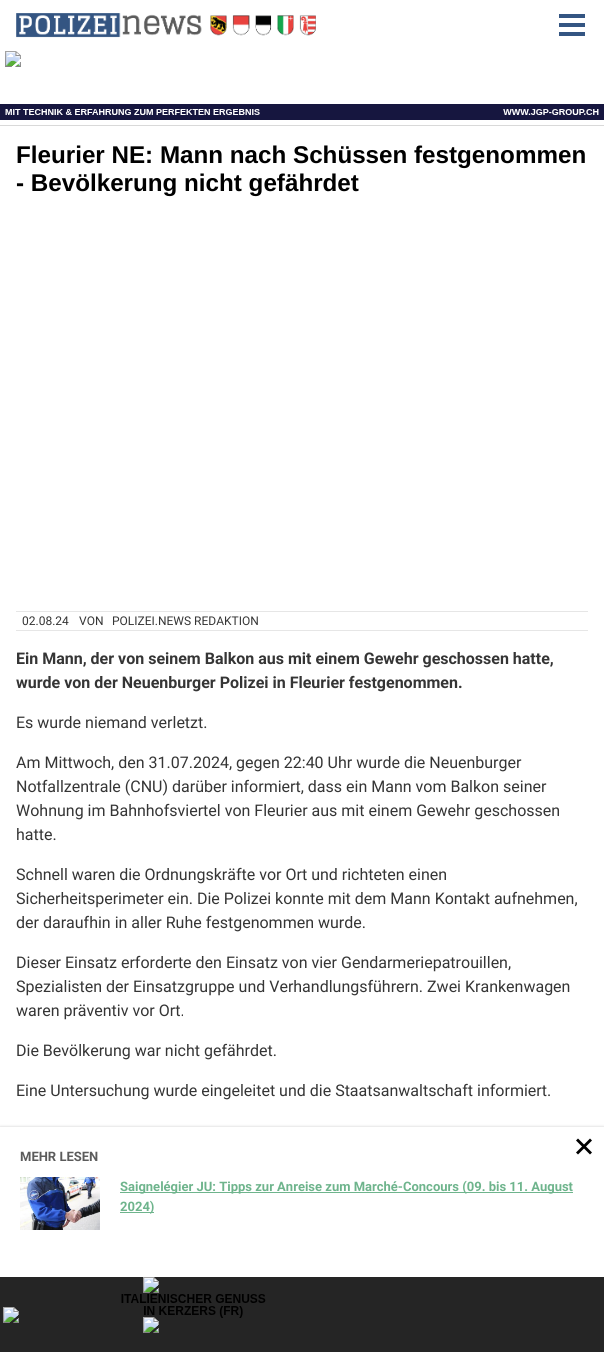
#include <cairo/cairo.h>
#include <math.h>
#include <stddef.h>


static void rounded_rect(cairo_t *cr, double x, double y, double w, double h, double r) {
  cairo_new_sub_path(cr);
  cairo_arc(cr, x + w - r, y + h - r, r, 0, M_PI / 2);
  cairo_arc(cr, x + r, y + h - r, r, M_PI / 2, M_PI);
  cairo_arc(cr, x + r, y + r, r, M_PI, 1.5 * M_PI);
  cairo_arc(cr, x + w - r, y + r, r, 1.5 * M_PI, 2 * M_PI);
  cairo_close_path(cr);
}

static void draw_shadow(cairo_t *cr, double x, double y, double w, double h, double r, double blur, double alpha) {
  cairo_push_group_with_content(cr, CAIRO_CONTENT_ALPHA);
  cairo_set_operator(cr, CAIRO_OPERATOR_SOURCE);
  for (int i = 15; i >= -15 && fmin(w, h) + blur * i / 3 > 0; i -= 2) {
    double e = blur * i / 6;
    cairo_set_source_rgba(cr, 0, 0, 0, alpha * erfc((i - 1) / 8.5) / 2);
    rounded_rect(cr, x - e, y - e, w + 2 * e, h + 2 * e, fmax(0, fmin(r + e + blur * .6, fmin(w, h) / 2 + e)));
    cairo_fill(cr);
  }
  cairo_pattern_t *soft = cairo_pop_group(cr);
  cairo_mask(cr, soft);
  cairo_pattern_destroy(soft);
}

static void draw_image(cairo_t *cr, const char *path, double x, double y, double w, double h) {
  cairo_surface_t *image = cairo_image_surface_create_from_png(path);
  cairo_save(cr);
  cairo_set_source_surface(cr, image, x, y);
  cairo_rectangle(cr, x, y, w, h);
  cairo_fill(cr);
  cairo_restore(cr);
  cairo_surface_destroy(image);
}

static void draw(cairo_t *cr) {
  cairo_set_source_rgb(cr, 1, 1, 1);
  cairo_paint(cr);
  cairo_set_source_rgb(cr, 217 / 255.0, 217 / 255.0, 217 / 255.0);
  cairo_rectangle(cr, 0, 125, 604, 1);
  cairo_fill(cr);
  draw_image(cr, "images/1.png", 16, 13, 300, 25);
  cairo_set_source_rgb(cr, 52 / 255.0, 85 / 255.0, 130 / 255.0);
  cairo_rectangle(cr, 559, 14, 26, 4);
  cairo_fill(cr);
  cairo_rectangle(cr, 559, 23, 26, 4);
  cairo_fill(cr);
  cairo_rectangle(cr, 559, 32, 26, 4);
  cairo_fill(cr);
  draw_image(cr, "images/2.png", 0, 51, 604, 69);
  cairo_set_source_rgb(cr, 0, 0, 0);
  draw_shadow(cr, 0, 1127, 604, 150, 0, 1.5, 0.2);
  draw_image(cr, "images/3.png", 0, 1277, 604, 75);
  cairo_set_source_rgb(cr, 230 / 255.0, 230 / 255.0, 230 / 255.0);
  cairo_rectangle(cr, 16, 611, 572, 1);
  cairo_fill(cr);
  cairo_rectangle(cr, 16, 630, 572, 1);
  cairo_fill(cr);
  cairo_set_source_rgb(cr, 1, 1, 1);
  cairo_rectangle(cr, 0, 1127, 604, 150);
  cairo_fill(cr);
  cairo_set_source_rgb(cr, 0, 0, 0);
  cairo_new_path(cr);
  cairo_move_to(cr, 578, 1138.5);
  cairo_line_to(cr, 592, 1152.5);
  cairo_line_to(cr, 590, 1154.5);
  cairo_line_to(cr, 576, 1140.5);
  cairo_close_path(cr);
  cairo_fill(cr);
  cairo_new_path(cr);
  cairo_move_to(cr, 576, 1152.5);
  cairo_line_to(cr, 590, 1138.5);
  cairo_line_to(cr, 592, 1140.5);
  cairo_line_to(cr, 578, 1154.5);
  cairo_close_path(cr);
  cairo_fill(cr);
  draw_image(cr, "images/4.png", 20, 1177, 80, 53);
  cairo_set_source_rgb(cr, 110 / 255.0, 180 / 255.0, 140 / 255.0);
  cairo_rectangle(cr, 120, 1192, 453, 1);
  cairo_fill(cr);
  cairo_rectangle(cr, 120, 1212, 34, 1);
  cairo_fill(cr);
  cairo_select_font_face(cr, "Liberation Sans", CAIRO_FONT_SLANT_NORMAL, CAIRO_FONT_WEIGHT_BOLD);
  cairo_set_font_size(cr, 24.2);
  cairo_set_source_rgb(cr, 0, 0, 0);
  cairo_move_to(cr, 16, 163);
  cairo_show_text(cr, "Fleurier NE: Mann nach Schüssen festgenommen");
  cairo_move_to(cr, 16, 191);
  cairo_show_text(cr, "- Bevölkerung nicht gefährdet");
  cairo_select_font_face(cr, "Roboto", CAIRO_FONT_SLANT_NORMAL, CAIRO_FONT_WEIGHT_NORMAL);
  cairo_set_font_size(cr, 12);
  cairo_set_source_rgb(cr, 53 / 255.0, 53 / 255.0, 53 / 255.0);
  cairo_move_to(cr, 22, 625);
  cairo_show_text(cr, "02.08.24");
  cairo_move_to(cr, 79, 625);
  cairo_show_text(cr, "VON");
  cairo_move_to(cr, 112, 625);
  cairo_show_text(cr, "POLIZEI.NEWS REDAKTION");
  cairo_select_font_face(cr, "Roboto", CAIRO_FONT_SLANT_NORMAL, CAIRO_FONT_WEIGHT_BOLD);
  cairo_set_font_size(cr, 16);
  cairo_move_to(cr, 16, 664);
  cairo_show_text(cr, "Ein Mann, der von seinem Balkon aus mit einem Gewehr geschossen hatte,");
  cairo_move_to(cr, 16, 688);
  cairo_show_text(cr, "wurde von der Neuenburger Polizei in Fleurier festgenommen.");
  cairo_select_font_face(cr, "Roboto", CAIRO_FONT_SLANT_NORMAL, CAIRO_FONT_WEIGHT_NORMAL);
  cairo_move_to(cr, 16, 728);
  cairo_show_text(cr, "Es wurde niemand verletzt.");
  cairo_move_to(cr, 16, 768);
  cairo_show_text(cr, "Am Mittwoch, den 31.07.2024, gegen 22:40 Uhr wurde die Neuenburger");
  cairo_move_to(cr, 16, 792);
  cairo_show_text(cr, "Notfallzentrale (CNU) darüber informiert, dass ein Mann vom Balkon seiner");
  cairo_move_to(cr, 16, 816);
  cairo_show_text(cr, "Wohnung im Bahnhofsviertel von Fleurier aus mit einem Gewehr geschossen");
  cairo_move_to(cr, 16, 840);
  cairo_show_text(cr, "hatte.");
  cairo_move_to(cr, 16, 880);
  cairo_show_text(cr, "Schnell waren die Ordnungskräfte vor Ort und richteten einen");
  cairo_move_to(cr, 16, 904);
  cairo_show_text(cr, "Sicherheitsperimeter ein. Die Polizei konnte mit dem Mann Kontakt aufnehmen,");
  cairo_move_to(cr, 16, 928);
  cairo_show_text(cr, "der daraufhin in aller Ruhe festgenommen wurde.");
  cairo_move_to(cr, 16, 968);
  cairo_show_text(cr, "Dieser Einsatz erforderte den Einsatz von vier Gendarmeriepatrouillen,");
  cairo_move_to(cr, 16, 992);
  cairo_show_text(cr, "Spezialisten der Einsatzgruppe und Verhandlungsführern. Zwei Krankenwagen");
  cairo_move_to(cr, 16, 1016);
  cairo_show_text(cr, "waren präventiv vor Ort.");
  cairo_move_to(cr, 16, 1056);
  cairo_show_text(cr, "Die Bevölkerung war nicht gefährdet.");
  cairo_move_to(cr, 16, 1096);
  cairo_show_text(cr, "Eine Untersuchung wurde eingeleitet und die Staatsanwaltschaft informiert.");
  cairo_select_font_face(cr, "Roboto", CAIRO_FONT_SLANT_NORMAL, CAIRO_FONT_WEIGHT_BOLD);
  cairo_set_font_size(cr, 13);
  cairo_set_source_rgb(cr, 91 / 255.0, 91 / 255.0, 91 / 255.0);
  cairo_move_to(cr, 20, 1161);
  cairo_show_text(cr, "MEHR LESEN");
  cairo_set_source_rgb(cr, 110 / 255.0, 180 / 255.0, 140 / 255.0);
  cairo_move_to(cr, 120, 1191);
  cairo_show_text(cr, "Saignelégier JU: Tipps zur Anreise zum Marché-Concours (09. bis 11. August");
  cairo_move_to(cr, 120, 1211);
  cairo_show_text(cr, "2024)");
}

int main(void) {
  cairo_surface_t *surface = cairo_image_surface_create(CAIRO_FORMAT_RGB24, 604, 1352);
  cairo_t *cr = cairo_create(surface);
  cairo_font_options_t *options = cairo_font_options_create();
  cairo_font_options_set_hint_metrics(options, CAIRO_HINT_METRICS_OFF);
  cairo_font_options_set_hint_style(options, CAIRO_HINT_STYLE_NONE);
  cairo_set_font_options(cr, options);
  cairo_set_miter_limit(cr, 4);
  draw(cr);
  cairo_surface_write_to_png(surface, "out.png");
  cairo_font_options_destroy(options);
  cairo_destroy(cr);
  cairo_surface_destroy(surface);
  return 0;
}
